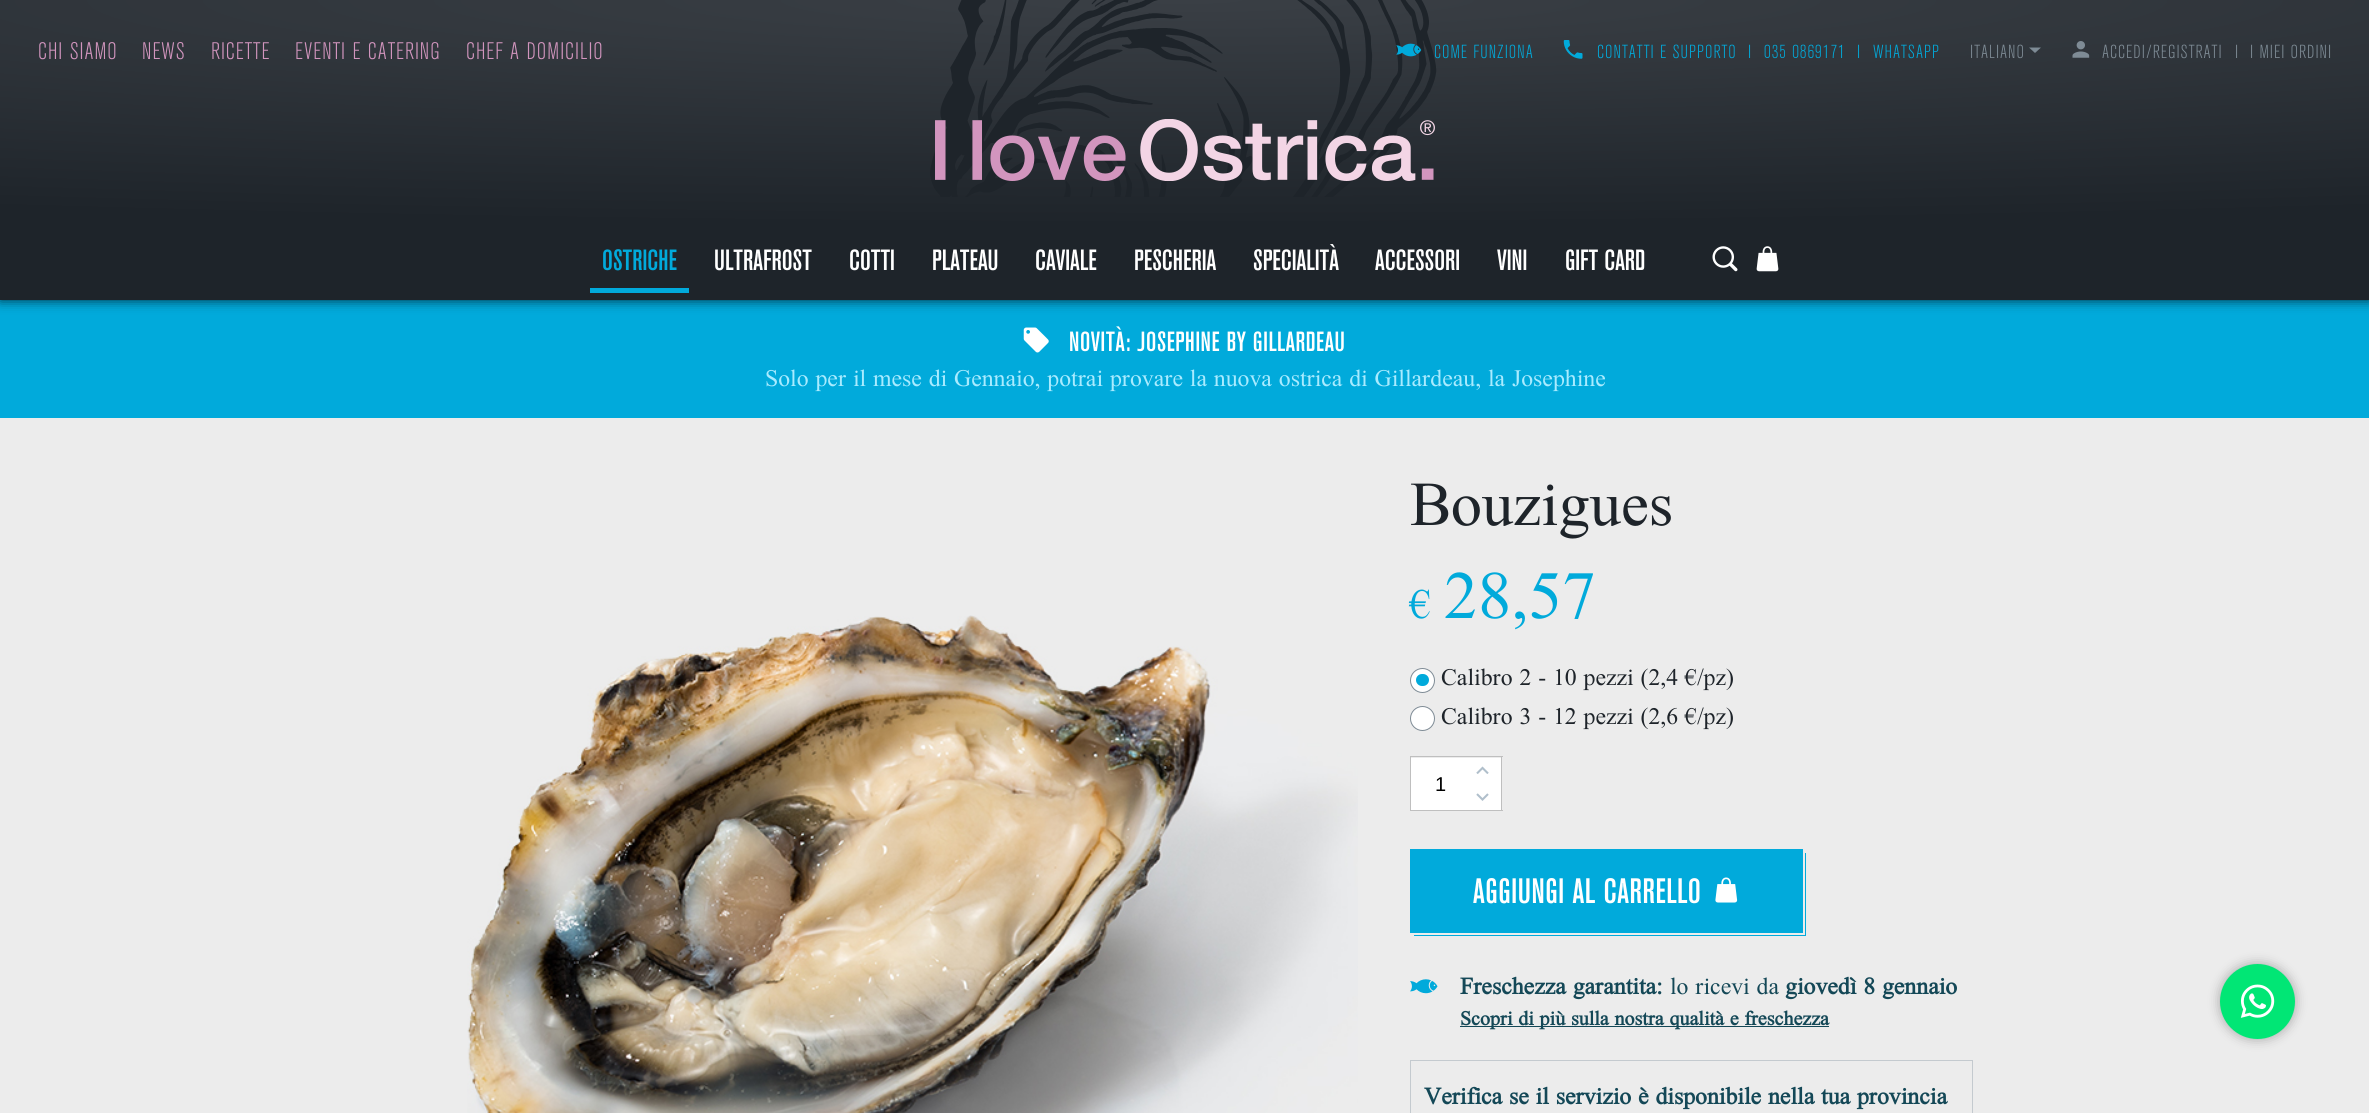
#include <cairo/cairo.h>
#include <math.h>
#include <stddef.h>


static void draw_spaced(cairo_t *cr, double x, double y, const char *s, double letter, double word) {
  cairo_move_to(cr, x, y);
  while (*s) {
    char ch[5] = {0};
    int n = 0;
    do ch[n++] = *s++; while ((*s & 0xC0) == 0x80);
    cairo_show_text(cr, ch);
    cairo_rel_move_to(cr, letter + word * (*ch == ' '), 0);
  }
}

static void rounded_rect(cairo_t *cr, double x, double y, double w, double h, double r) {
  cairo_new_sub_path(cr);
  cairo_arc(cr, x + w - r, y + h - r, r, 0, M_PI / 2);
  cairo_arc(cr, x + r, y + h - r, r, M_PI / 2, M_PI);
  cairo_arc(cr, x + r, y + r, r, M_PI, 1.5 * M_PI);
  cairo_arc(cr, x + w - r, y + r, r, 1.5 * M_PI, 2 * M_PI);
  cairo_close_path(cr);
}

static void draw_shadow(cairo_t *cr, double x, double y, double w, double h, double r, double blur, double alpha) {
  cairo_push_group_with_content(cr, CAIRO_CONTENT_ALPHA);
  cairo_set_operator(cr, CAIRO_OPERATOR_SOURCE);
  for (int i = 15; i >= -15 && fmin(w, h) + blur * i / 3 > 0; i -= 2) {
    double e = blur * i / 6;
    cairo_set_source_rgba(cr, 0, 0, 0, alpha * erfc((i - 1) / 8.5) / 2);
    rounded_rect(cr, x - e, y - e, w + 2 * e, h + 2 * e, fmax(0, fmin(r + e + blur * .6, fmin(w, h) / 2 + e)));
    cairo_fill(cr);
  }
  cairo_pattern_t *soft = cairo_pop_group(cr);
  cairo_mask(cr, soft);
  cairo_pattern_destroy(soft);
}

static void draw_image(cairo_t *cr, const char *path, double x, double y, double w, double h) {
  cairo_surface_t *image = cairo_image_surface_create_from_png(path);
  cairo_save(cr);
  cairo_set_source_surface(cr, image, x, y);
  cairo_rectangle(cr, x, y, w, h);
  cairo_fill(cr);
  cairo_restore(cr);
  cairo_surface_destroy(image);
}

static void draw(cairo_t *cr) {
  cairo_pattern_t *gradient;
  cairo_set_source_rgb(cr, 236 / 255.0, 236 / 255.0, 236 / 255.0);
  cairo_paint(cr);
  cairo_set_source_rgb(cr, 1 / 255.0, 170 / 255.0, 219 / 255.0);
  cairo_rectangle(cr, 0, 300, 2369, 118);
  cairo_fill(cr);
  cairo_set_source_rgb(cr, 0, 0, 0);
  draw_shadow(cr, 0, 0, 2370, 300, 0, 6, 0.75);
  gradient = cairo_pattern_create_radial(0, 0, 0, 0, 0, 1);
  cairo_pattern_set_matrix(gradient, &(cairo_matrix_t){1.0 / 3125, 0, 0, 1.0 / 225, -1.0 * 1185 / 3125, -1.0 * 0 / 225});
  cairo_pattern_add_color_stop_rgba(gradient, 0, 58 / 255.0, 63 / 255.0, 69 / 255.0, 1);
  cairo_pattern_add_color_stop_rgba(gradient, 1, 30 / 255.0, 36 / 255.0, 42 / 255.0, 1);
  cairo_set_source(cr, gradient);
  cairo_pattern_destroy(gradient);
  cairo_rectangle(cr, 0, 0, 2369, 300);
  cairo_fill(cr);
  draw_image(cr, "images/1.png", 930, 0, 507, 197);
  draw_image(cr, "images/2.png", 1396, 43, 26, 14);
  draw_image(cr, "images/3.png", 1563, 40, 20, 19);
  cairo_set_source_rgb(cr, 126 / 255.0, 139 / 255.0, 149 / 255.0);
  cairo_new_path(cr);
  cairo_move_to(cr, 2035, 53);
  cairo_line_to(cr, 2041, 47.5);
  cairo_line_to(cr, 2029, 47.5);
  cairo_close_path(cr);
  cairo_fill(cr);
  draw_image(cr, "images/4.png", 2072, 41, 18, 17);
  draw_image(cr, "images/5.png", 935, 119, 500, 62);
  cairo_set_source_rgb(cr, 1 / 255.0, 170 / 255.0, 219 / 255.0);
  cairo_rectangle(cr, 590, 288, 99, 5);
  cairo_fill(cr);
  draw_image(cr, "images/6.png", 1712, 246, 26, 26);
  draw_image(cr, "images/7.png", 1756, 246, 23, 26);
  draw_image(cr, "images/8.png", 1023, 327, 26, 26);
  draw_image(cr, "images/9.png", 467, 615, 891, 498);
  cairo_set_source_rgb(cr, 1, 1, 1);
  cairo_arc(cr, 1422.5, 680.5, 12, 0, 2 * M_PI);
  cairo_fill_preserve(cr);
  cairo_set_source_rgb(cr, 126 / 255.0, 139 / 255.0, 149 / 255.0);
  cairo_set_line_width(cr, 1);
  cairo_stroke(cr);
  cairo_set_source_rgb(cr, 1 / 255.0, 170 / 255.0, 219 / 255.0);
  rounded_rect(cr, 1416, 674, 13, 12, 6);
  cairo_fill(cr);
  cairo_set_source_rgb(cr, 1, 1, 1);
  cairo_arc(cr, 1422.5, 718.5, 12, 0, 2 * M_PI);
  cairo_fill_preserve(cr);
  cairo_set_source_rgb(cr, 126 / 255.0, 139 / 255.0, 149 / 255.0);
  cairo_stroke(cr);
  cairo_set_source_rgb(cr, 1, 1, 1);
  cairo_rectangle(cr, 1411, 758, 90, 52);
  cairo_fill(cr);
  cairo_set_source_rgb(cr, 191 / 255.0, 191 / 255.0, 191 / 255.0);
  cairo_rectangle(cr, 1410, 756, 93, 1);
  cairo_fill(cr);
  cairo_rectangle(cr, 1410, 810, 60, 1);
  cairo_fill(cr);
  cairo_rectangle(cr, 1410, 756, 1, 55);
  cairo_fill(cr);
  cairo_rectangle(cr, 1501, 756, 1, 55);
  cairo_fill(cr);
  cairo_rectangle(cr, 1470, 810, 33, 1);
  cairo_fill(cr);
  draw_image(cr, "images/10.png", 1476, 766, 13, 8);
  draw_image(cr, "images/11.png", 1476, 793, 13, 8);
  cairo_set_source_rgb(cr, 1 / 255.0, 170 / 255.0, 219 / 255.0);
  cairo_rectangle(cr, 1410, 849, 393, 84);
  cairo_fill(cr);
  cairo_rectangle(cr, 1805, 853, 1, 83);
  cairo_fill(cr);
  cairo_rectangle(cr, 1414, 935, 392, 1);
  cairo_fill(cr);
  draw_image(cr, "images/12.png", 1715, 877, 23, 26);
  draw_image(cr, "images/13.png", 1410, 979, 28, 15);
  cairo_set_source_rgb(cr, 20 / 255.0, 72 / 255.0, 87 / 255.0);
  cairo_rectangle(cr, 1460, 1026, 369, 1);
  cairo_fill(cr);
  cairo_rectangle(cr, 1410.5, 1060.5, 562, 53);
  cairo_set_source_rgb(cr, 196 / 255.0, 202 / 255.0, 207 / 255.0);
  cairo_stroke(cr);
  cairo_set_source_rgb(cr, 0, 0, 0);
  draw_shadow(cr, 2220, 964, 75, 75, 37.5, 6, 0.3);
  cairo_set_source_rgb(cr, 1 / 255.0, 230 / 255.0, 117 / 255.0);
  cairo_arc(cr, 2257.5, 1001.5, 37.5, 0, 2 * M_PI);
  cairo_fill(cr);
  draw_image(cr, "images/14.png", 2240, 984, 35, 34);
  cairo_select_font_face(cr, "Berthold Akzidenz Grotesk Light", CAIRO_FONT_SLANT_NORMAL, CAIRO_FONT_WEIGHT_NORMAL);
  cairo_set_font_size(cr, 23.75);
  cairo_set_source_rgb(cr, 210 / 255.0, 149 / 255.0, 190 / 255.0);
  draw_spaced(cr, 38, 59, "CHI SIAMO", 1, 0);
  draw_spaced(cr, 142, 59, "NEWS", 1, 0);
  draw_spaced(cr, 211, 59, "RICETTE", 1, 0);
  draw_spaced(cr, 295, 59, "EVENTI E CATERING", 1, 0);
  draw_spaced(cr, 466, 59, "CHEF A DOMICILIO", 1, 0);
  cairo_set_font_size(cr, 18.75);
  cairo_set_source_rgb(cr, 1 / 255.0, 170 / 255.0, 219 / 255.0);
  draw_spaced(cr, 1434, 58, "COME FUNZIONA", 1, 0);
  draw_spaced(cr, 1597, 58, "CONTATTI E SUPPORTO", 1, 0);
  draw_spaced(cr, 1748, 58, "I", 1, 0);
  draw_spaced(cr, 1764, 58, "035 0869171", 1, 0);
  draw_spaced(cr, 1857, 58, "I", 1, 0);
  draw_spaced(cr, 1873, 58, "WHATSAPP", 1, 0);
  cairo_set_source_rgb(cr, 126 / 255.0, 139 / 255.0, 149 / 255.0);
  draw_spaced(cr, 1970, 58, "ITALIANO", 1, 0);
  draw_spaced(cr, 2102, 58, "ACCEDI/REGISTRATI", 1, 0);
  draw_spaced(cr, 2235, 58, "I", 1, 0);
  draw_spaced(cr, 2250, 58, "I MIEI ORDINI", 1, 0);
  cairo_select_font_face(cr, "Berthold Akzidenz Grotesk Medium", CAIRO_FONT_SLANT_NORMAL, CAIRO_FONT_WEIGHT_NORMAL);
  cairo_set_font_size(cr, 29);
  cairo_set_source_rgb(cr, 1 / 255.0, 170 / 255.0, 219 / 255.0);
  cairo_move_to(cr, 602, 270);
  cairo_show_text(cr, "OSTRICHE");
  cairo_set_source_rgb(cr, 1, 1, 1);
  cairo_move_to(cr, 714, 270);
  cairo_show_text(cr, "ULTRAFROST");
  cairo_move_to(cr, 849, 270);
  cairo_show_text(cr, "COTTI");
  cairo_move_to(cr, 932, 270);
  cairo_show_text(cr, "PLATEAU");
  cairo_move_to(cr, 1035, 270);
  cairo_show_text(cr, "CAVIALE");
  cairo_move_to(cr, 1134, 270);
  cairo_show_text(cr, "PESCHERIA");
  cairo_move_to(cr, 1253, 270);
  cairo_show_text(cr, "SPECIALITÀ");
  cairo_move_to(cr, 1375, 270);
  cairo_show_text(cr, "ACCESSORI");
  cairo_move_to(cr, 1497, 270);
  cairo_show_text(cr, "VINI");
  cairo_move_to(cr, 1565, 270);
  cairo_show_text(cr, "GIFT CARD");
  cairo_set_font_size(cr, 27.5);
  draw_spaced(cr, 1069, 351, "NOVITÀ: JOSEPHINE BY GILLARDEAU", 0.6, 0);
  cairo_select_font_face(cr, "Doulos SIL", CAIRO_FONT_SLANT_NORMAL, CAIRO_FONT_WEIGHT_NORMAL);
  cairo_set_font_size(cr, 23.75);
  cairo_set_source_rgb(cr, 169 / 255.0, 235 / 255.0, 1);
  cairo_move_to(cr, 765, 386);
  cairo_show_text(cr, "Solo per il mese di Gennaio, potrai provare la nuova ostrica di Gillardeau, la Josephine");
  cairo_set_font_size(cr, 62.5);
  cairo_set_source_rgb(cr, 30 / 255.0, 36 / 255.0, 42 / 255.0);
  cairo_move_to(cr, 1410, 525);
  cairo_show_text(cr, "Bouzigues");
  cairo_set_font_size(cr, 42);
  cairo_set_source_rgb(cr, 1 / 255.0, 170 / 255.0, 219 / 255.0);
  cairo_move_to(cr, 1410, 618);
  cairo_show_text(cr, "€");
  cairo_set_font_size(cr, 67.5);
  cairo_move_to(cr, 1444, 618);
  cairo_show_text(cr, "28,57");
  cairo_set_font_size(cr, 23.75);
  cairo_set_source_rgb(cr, 30 / 255.0, 36 / 255.0, 42 / 255.0);
  cairo_move_to(cr, 1441, 685);
  cairo_show_text(cr, "Calibro 2 - 10 pezzi (2,4 €/pz)");
  cairo_move_to(cr, 1441, 724);
  cairo_show_text(cr, "Calibro 3 - 12 pezzi (2,6 €/pz)");
  cairo_select_font_face(cr, "Liberation Sans", CAIRO_FONT_SLANT_NORMAL, CAIRO_FONT_WEIGHT_NORMAL);
  cairo_set_font_size(cr, 20);
  cairo_set_source_rgb(cr, 0, 0, 0);
  cairo_move_to(cr, 1435, 791);
  cairo_show_text(cr, "1");
  cairo_select_font_face(cr, "Berthold Akzidenz Grotesk Medium", CAIRO_FONT_SLANT_NORMAL, CAIRO_FONT_WEIGHT_NORMAL);
  cairo_set_font_size(cr, 35);
  cairo_set_source_rgb(cr, 1, 1, 1);
  draw_spaced(cr, 1473, 903, "AGGIUNGI AL CARRELLO", 0.6, 0);
  cairo_select_font_face(cr, "Doulos SIL", CAIRO_FONT_SLANT_NORMAL, CAIRO_FONT_WEIGHT_BOLD);
  cairo_set_font_size(cr, 23.75);
  cairo_set_source_rgb(cr, 20 / 255.0, 72 / 255.0, 87 / 255.0);
  cairo_move_to(cr, 1460, 994);
  cairo_show_text(cr, "Freschezza garantita:");
  cairo_select_font_face(cr, "Doulos SIL", CAIRO_FONT_SLANT_NORMAL, CAIRO_FONT_WEIGHT_NORMAL);
  cairo_move_to(cr, 1670, 994);
  cairo_show_text(cr, "lo ricevi da");
  cairo_select_font_face(cr, "Doulos SIL", CAIRO_FONT_SLANT_NORMAL, CAIRO_FONT_WEIGHT_BOLD);
  cairo_move_to(cr, 1785, 994);
  cairo_show_text(cr, "giovedì 8 gennaio");
  cairo_set_font_size(cr, 20);
  cairo_move_to(cr, 1460, 1025);
  cairo_show_text(cr, "Scopri di più sulla nostra qualità e freschezza");
  cairo_set_font_size(cr, 23.75);
  cairo_move_to(cr, 1424, 1104);
  cairo_show_text(cr, "Verifica se il servizio è disponibile nella tua provincia");
}

int main(void) {
  cairo_surface_t *surface = cairo_image_surface_create(CAIRO_FORMAT_RGB24, 2369, 1113);
  cairo_t *cr = cairo_create(surface);
  cairo_font_options_t *options = cairo_font_options_create();
  cairo_font_options_set_hint_metrics(options, CAIRO_HINT_METRICS_OFF);
  cairo_font_options_set_hint_style(options, CAIRO_HINT_STYLE_NONE);
  cairo_set_font_options(cr, options);
  cairo_set_miter_limit(cr, 4);
  draw(cr);
  cairo_surface_write_to_png(surface, "out.png");
  cairo_font_options_destroy(options);
  cairo_destroy(cr);
  cairo_surface_destroy(surface);
  return 0;
}
